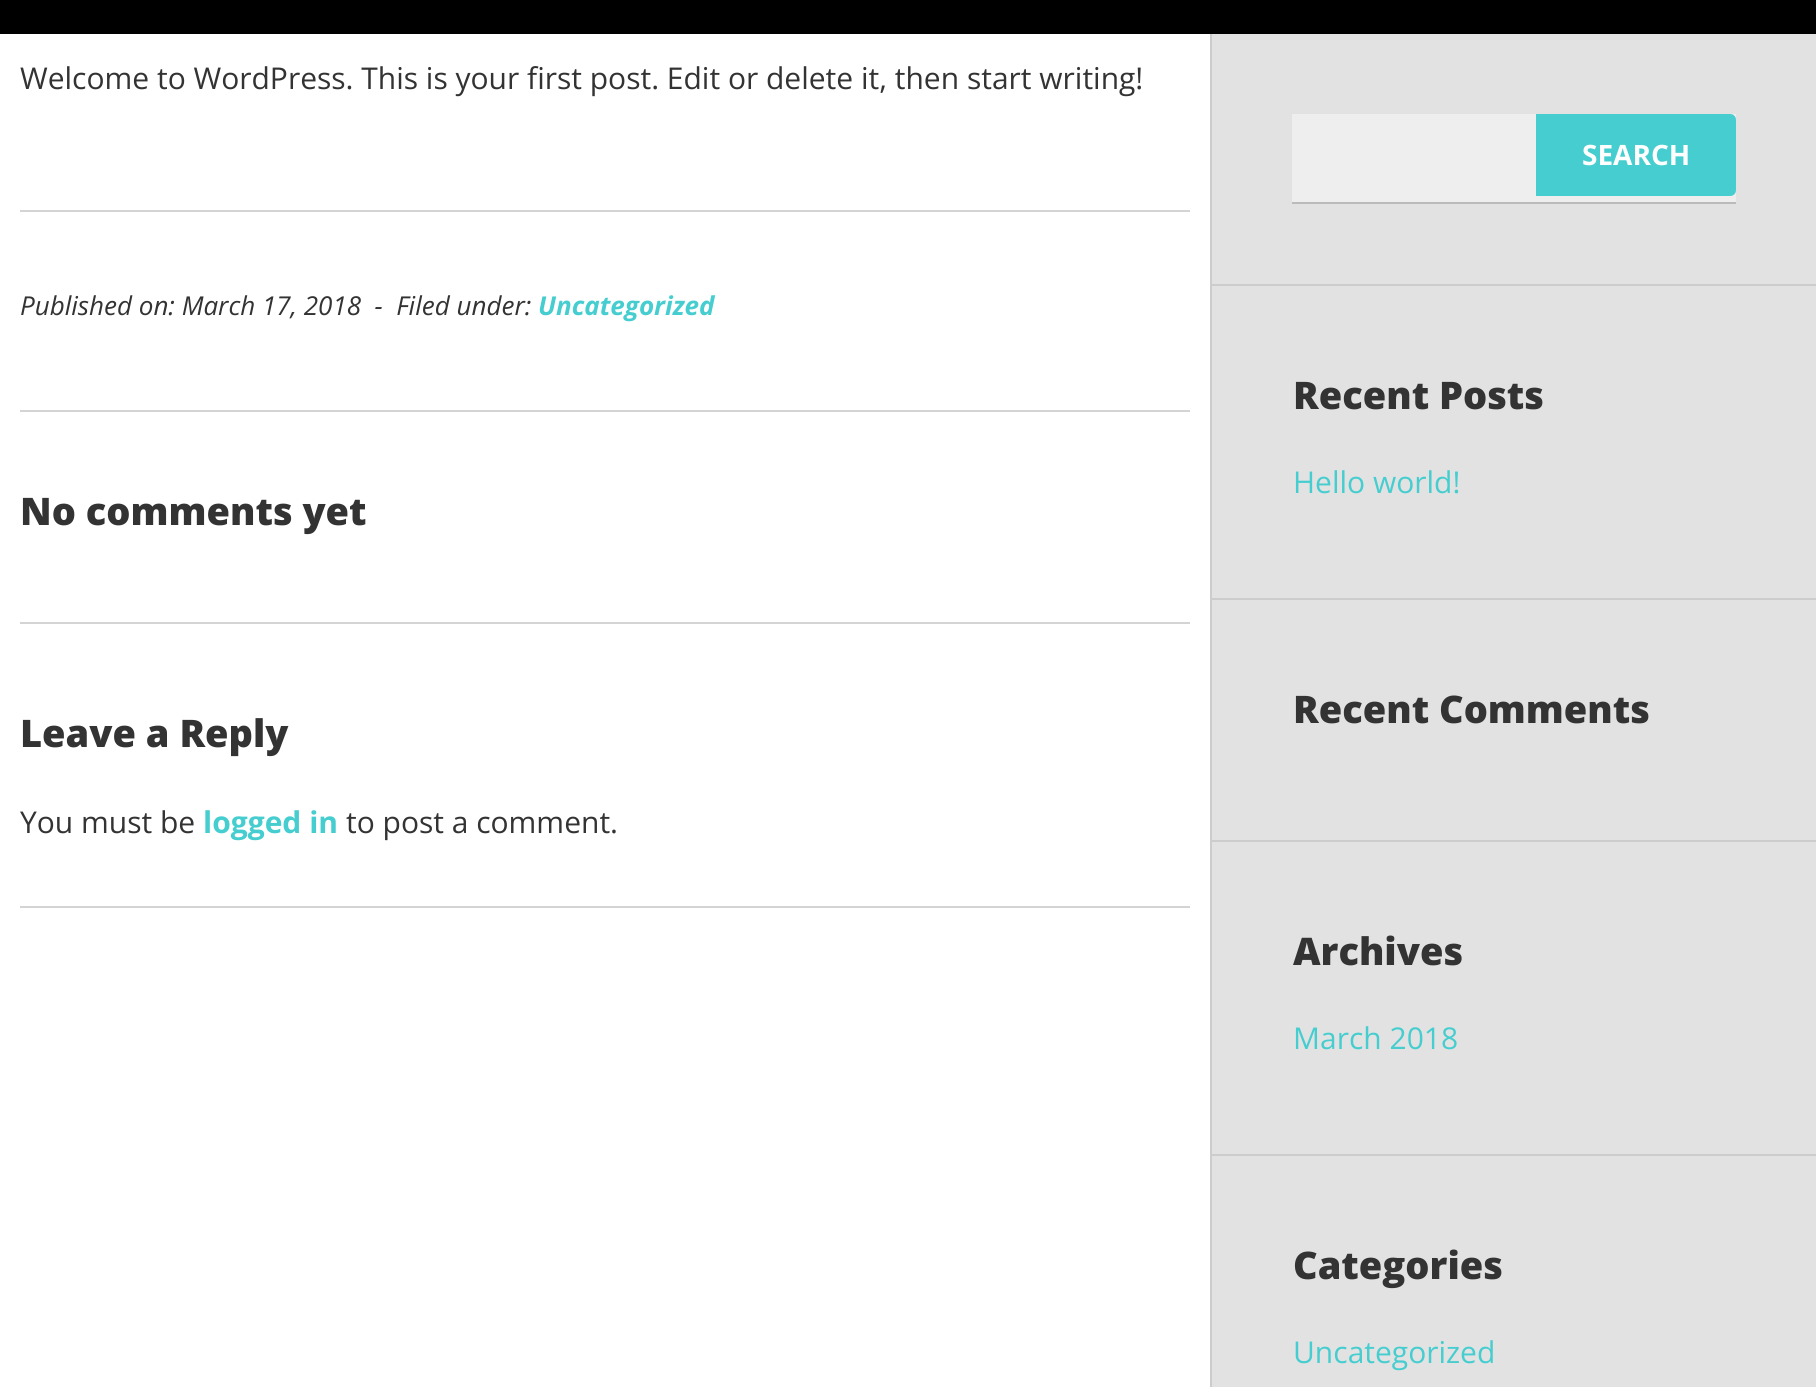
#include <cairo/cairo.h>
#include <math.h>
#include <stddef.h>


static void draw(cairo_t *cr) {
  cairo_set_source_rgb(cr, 1, 1, 1);
  cairo_paint(cr);
  cairo_set_source_rgb(cr, 0, 0, 0);
  cairo_rectangle(cr, 0, 0, 1816, 34);
  cairo_fill(cr);
  cairo_set_source_rgb(cr, 212 / 255.0, 212 / 255.0, 212 / 255.0);
  cairo_rectangle(cr, 20, 210, 1170, 2);
  cairo_fill(cr);
  cairo_rectangle(cr, 20, 410, 1170, 2);
  cairo_fill(cr);
  cairo_rectangle(cr, 20, 622, 1170, 2);
  cairo_fill(cr);
  cairo_rectangle(cr, 20, 906, 1170, 2);
  cairo_fill(cr);
  cairo_set_source_rgb(cr, 226 / 255.0, 226 / 255.0, 226 / 255.0);
  cairo_rectangle(cr, 1212, 34, 604, 1353);
  cairo_fill(cr);
  cairo_set_source_rgb(cr, 204 / 255.0, 204 / 255.0, 204 / 255.0);
  cairo_rectangle(cr, 1210, 34, 2, 1353);
  cairo_fill(cr);
  cairo_set_source_rgb(cr, 238 / 255.0, 238 / 255.0, 238 / 255.0);
  cairo_rectangle(cr, 1292, 114, 444, 88);
  cairo_fill(cr);
  cairo_set_source_rgb(cr, 187 / 255.0, 187 / 255.0, 187 / 255.0);
  cairo_rectangle(cr, 1292, 202, 444, 2);
  cairo_fill(cr);
  cairo_set_source_rgb(cr, 70 / 255.0, 205 / 255.0, 207 / 255.0);
  cairo_new_path(cr);
  cairo_move_to(cr, 1536, 114);
  cairo_line_to(cr, 1730, 114);
  cairo_curve_to(cr, 1733.5, 114, 1736, 116.5, 1736, 120);
  cairo_line_to(cr, 1736, 190);
  cairo_curve_to(cr, 1736, 193.5, 1733.5, 196, 1730, 196);
  cairo_line_to(cr, 1536, 196);
  cairo_close_path(cr);
  cairo_fill(cr);
  cairo_set_source_rgb(cr, 204 / 255.0, 204 / 255.0, 204 / 255.0);
  cairo_rectangle(cr, 1212, 284, 604, 2);
  cairo_fill(cr);
  cairo_rectangle(cr, 1212, 598, 604, 2);
  cairo_fill(cr);
  cairo_rectangle(cr, 1212, 840, 604, 2);
  cairo_fill(cr);
  cairo_rectangle(cr, 1212, 1154, 604, 2);
  cairo_fill(cr);
  cairo_select_font_face(cr, "Open Sans", CAIRO_FONT_SLANT_NORMAL, CAIRO_FONT_WEIGHT_NORMAL);
  cairo_set_font_size(cr, 30);
  cairo_set_source_rgb(cr, 51 / 255.0, 51 / 255.0, 51 / 255.0);
  cairo_move_to(cr, 20, 89);
  cairo_show_text(cr, "Welcome to WordPress. This is your first post. Edit or delete it, then start writing!");
  cairo_select_font_face(cr, "Open Sans", CAIRO_FONT_SLANT_ITALIC, CAIRO_FONT_WEIGHT_NORMAL);
  cairo_set_font_size(cr, 26);
  cairo_move_to(cr, 20, 315);
  cairo_show_text(cr, "Published on: March 17, 2018  -  Filed under:");
  cairo_select_font_face(cr, "Open Sans", CAIRO_FONT_SLANT_ITALIC, CAIRO_FONT_WEIGHT_BOLD);
  cairo_set_source_rgb(cr, 70 / 255.0, 205 / 255.0, 207 / 255.0);
  cairo_move_to(cr, 538, 315);
  cairo_show_text(cr, "Uncategorized");
  cairo_select_font_face(cr, "Open Sans ExtraBold", CAIRO_FONT_SLANT_NORMAL, CAIRO_FONT_WEIGHT_NORMAL);
  cairo_set_font_size(cr, 38);
  cairo_set_source_rgb(cr, 51 / 255.0, 51 / 255.0, 51 / 255.0);
  cairo_move_to(cr, 20, 525);
  cairo_show_text(cr, "No comments yet");
  cairo_move_to(cr, 20, 747);
  cairo_show_text(cr, "Leave a Reply");
  cairo_select_font_face(cr, "Open Sans", CAIRO_FONT_SLANT_NORMAL, CAIRO_FONT_WEIGHT_NORMAL);
  cairo_set_font_size(cr, 30);
  cairo_move_to(cr, 20, 833);
  cairo_show_text(cr, "You must be");
  cairo_select_font_face(cr, "Open Sans", CAIRO_FONT_SLANT_NORMAL, CAIRO_FONT_WEIGHT_BOLD);
  cairo_set_source_rgb(cr, 70 / 255.0, 205 / 255.0, 207 / 255.0);
  cairo_move_to(cr, 203, 833);
  cairo_show_text(cr, "logged in");
  cairo_select_font_face(cr, "Open Sans", CAIRO_FONT_SLANT_NORMAL, CAIRO_FONT_WEIGHT_NORMAL);
  cairo_set_source_rgb(cr, 51 / 255.0, 51 / 255.0, 51 / 255.0);
  cairo_move_to(cr, 346, 833);
  cairo_show_text(cr, "to post a comment.");
  cairo_select_font_face(cr, "Open Sans", CAIRO_FONT_SLANT_NORMAL, CAIRO_FONT_WEIGHT_BOLD);
  cairo_set_font_size(cr, 28);
  cairo_set_source_rgb(cr, 1, 1, 1);
  cairo_move_to(cr, 1582, 165);
  cairo_show_text(cr, "SEARCH");
  cairo_select_font_face(cr, "Open Sans ExtraBold", CAIRO_FONT_SLANT_NORMAL, CAIRO_FONT_WEIGHT_NORMAL);
  cairo_set_font_size(cr, 38);
  cairo_set_source_rgb(cr, 51 / 255.0, 51 / 255.0, 51 / 255.0);
  cairo_move_to(cr, 1293, 409);
  cairo_show_text(cr, "Recent Posts");
  cairo_select_font_face(cr, "Open Sans", CAIRO_FONT_SLANT_NORMAL, CAIRO_FONT_WEIGHT_NORMAL);
  cairo_set_font_size(cr, 30);
  cairo_set_source_rgb(cr, 70 / 255.0, 205 / 255.0, 207 / 255.0);
  cairo_move_to(cr, 1293, 493);
  cairo_show_text(cr, "Hello world!");
  cairo_select_font_face(cr, "Open Sans ExtraBold", CAIRO_FONT_SLANT_NORMAL, CAIRO_FONT_WEIGHT_NORMAL);
  cairo_set_font_size(cr, 38);
  cairo_set_source_rgb(cr, 51 / 255.0, 51 / 255.0, 51 / 255.0);
  cairo_move_to(cr, 1293, 723);
  cairo_show_text(cr, "Recent Comments");
  cairo_move_to(cr, 1293, 965);
  cairo_show_text(cr, "Archives");
  cairo_select_font_face(cr, "Open Sans", CAIRO_FONT_SLANT_NORMAL, CAIRO_FONT_WEIGHT_NORMAL);
  cairo_set_font_size(cr, 30);
  cairo_set_source_rgb(cr, 70 / 255.0, 205 / 255.0, 207 / 255.0);
  cairo_move_to(cr, 1293, 1049);
  cairo_show_text(cr, "March 2018");
  cairo_select_font_face(cr, "Open Sans ExtraBold", CAIRO_FONT_SLANT_NORMAL, CAIRO_FONT_WEIGHT_NORMAL);
  cairo_set_font_size(cr, 38);
  cairo_set_source_rgb(cr, 51 / 255.0, 51 / 255.0, 51 / 255.0);
  cairo_move_to(cr, 1293, 1279);
  cairo_show_text(cr, "Categories");
  cairo_select_font_face(cr, "Open Sans", CAIRO_FONT_SLANT_NORMAL, CAIRO_FONT_WEIGHT_NORMAL);
  cairo_set_font_size(cr, 30);
  cairo_set_source_rgb(cr, 70 / 255.0, 205 / 255.0, 207 / 255.0);
  cairo_move_to(cr, 1293, 1363);
  cairo_show_text(cr, "Uncategorized");
}

int main(void) {
  cairo_surface_t *surface = cairo_image_surface_create(CAIRO_FORMAT_RGB24, 1816, 1387);
  cairo_t *cr = cairo_create(surface);
  cairo_font_options_t *options = cairo_font_options_create();
  cairo_font_options_set_hint_metrics(options, CAIRO_HINT_METRICS_OFF);
  cairo_font_options_set_hint_style(options, CAIRO_HINT_STYLE_NONE);
  cairo_set_font_options(cr, options);
  cairo_set_miter_limit(cr, 4);
  draw(cr);
  cairo_surface_write_to_png(surface, "out.png");
  cairo_font_options_destroy(options);
  cairo_destroy(cr);
  cairo_surface_destroy(surface);
  return 0;
}
